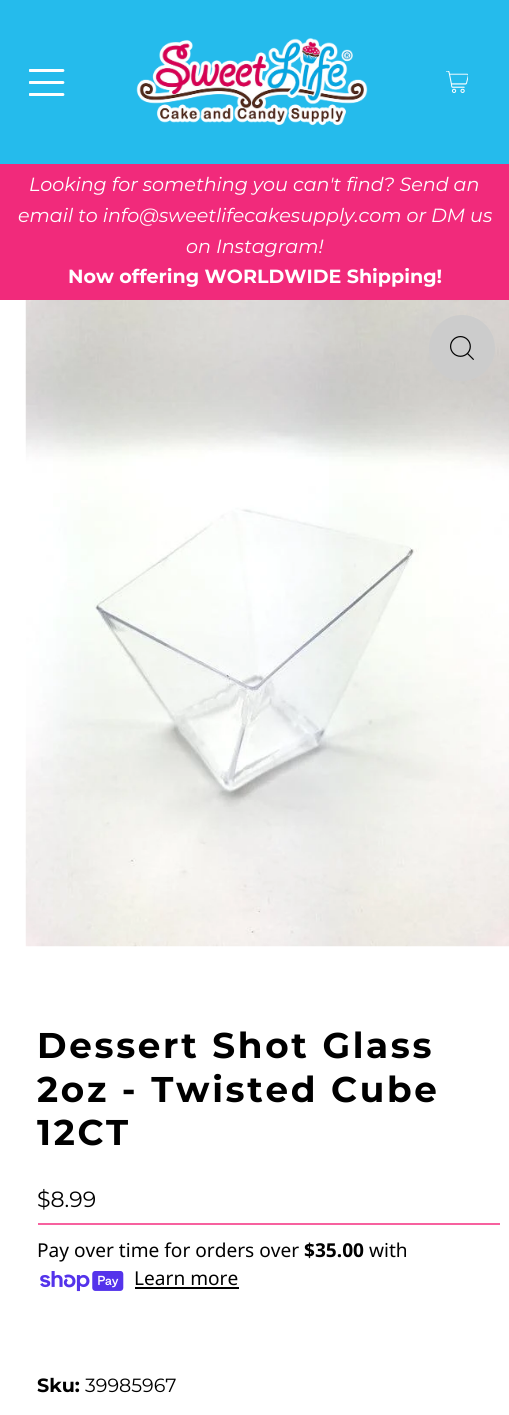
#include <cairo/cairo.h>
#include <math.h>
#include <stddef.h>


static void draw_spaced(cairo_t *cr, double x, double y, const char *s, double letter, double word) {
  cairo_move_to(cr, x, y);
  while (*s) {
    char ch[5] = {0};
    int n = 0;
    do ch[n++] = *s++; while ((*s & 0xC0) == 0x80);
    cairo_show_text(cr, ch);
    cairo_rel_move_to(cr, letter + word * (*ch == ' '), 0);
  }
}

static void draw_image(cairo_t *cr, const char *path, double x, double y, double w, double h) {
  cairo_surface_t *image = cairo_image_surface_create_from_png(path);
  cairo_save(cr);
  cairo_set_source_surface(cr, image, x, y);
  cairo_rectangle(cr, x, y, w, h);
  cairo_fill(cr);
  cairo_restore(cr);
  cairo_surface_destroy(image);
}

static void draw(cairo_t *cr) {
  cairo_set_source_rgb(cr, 1, 1, 1);
  cairo_paint(cr);
  cairo_set_source_rgb(cr, 37 / 255.0, 187 / 255.0, 236 / 255.0);
  cairo_rectangle(cr, 0, 0, 509, 164);
  cairo_fill(cr);
  draw_image(cr, "images/1.png", 29, 69, 36, 27);
  draw_image(cr, "images/2.png", 136, 38, 232, 88);
  draw_image(cr, "images/3.png", 446, 71, 22, 22);
  cairo_set_source_rgb(cr, 241 / 255.0, 42 / 255.0, 123 / 255.0);
  cairo_rectangle(cr, 0, 164, 509, 136);
  cairo_fill(cr);
  draw_image(cr, "images/4.png", 25, 300, 484, 647);
  cairo_set_source_rgb(cr, 204 / 255.0, 204 / 255.0, 204 / 255.0);
  cairo_arc(cr, 462, 348, 33, 0, 2 * M_PI);
  cairo_fill(cr);
  draw_image(cr, "images/5.png", 450, 336, 24, 24);
  cairo_set_source_rgb(cr, 247 / 255.0, 97 / 255.0, 159 / 255.0);
  cairo_rectangle(cr, 38, 1223, 462, 2);
  cairo_fill(cr);
  draw_image(cr, "images/6.png", 40, 1271, 84, 21);
  cairo_set_source_rgb(cr, 0, 0, 0);
  cairo_rectangle(cr, 135, 1287, 104, 2);
  cairo_fill(cr);
  cairo_select_font_face(cr, "Montserrat", CAIRO_FONT_SLANT_ITALIC, CAIRO_FONT_WEIGHT_NORMAL);
  cairo_set_font_size(cr, 19.1);
  cairo_set_source_rgb(cr, 1, 1, 1);
  cairo_move_to(cr, 29, 191);
  cairo_show_text(cr, "Looking for something you can't find? Send an");
  cairo_move_to(cr, 18, 222);
  cairo_show_text(cr, "email to info@sweetlifecakesupply.com or DM us");
  cairo_move_to(cr, 186, 253);
  cairo_show_text(cr, "on Instagram!");
  cairo_select_font_face(cr, "Montserrat", CAIRO_FONT_SLANT_NORMAL, CAIRO_FONT_WEIGHT_BOLD);
  cairo_move_to(cr, 68, 283);
  cairo_show_text(cr, "Now offering WORLDWIDE Shipping!");
  cairo_set_font_size(cr, 35.75);
  cairo_set_source_rgb(cr, 0, 0, 0);
  draw_spaced(cr, 37, 1058, "Dessert Shot Glass", 2.7, 0);
  draw_spaced(cr, 37, 1102, "2oz - Twisted Cube", 2.7, 0);
  draw_spaced(cr, 37, 1145, "12CT", 2.7, 0);
  cairo_select_font_face(cr, "Montserrat", CAIRO_FONT_SLANT_NORMAL, CAIRO_FONT_WEIGHT_NORMAL);
  cairo_set_font_size(cr, 22);
  cairo_move_to(cr, 37, 1207);
  cairo_show_text(cr, "$8.99");
  cairo_select_font_face(cr, "Noto Sans", CAIRO_FONT_SLANT_NORMAL, CAIRO_FONT_WEIGHT_NORMAL);
  cairo_set_font_size(cr, 19.1);
  cairo_move_to(cr, 37, 1257);
  cairo_show_text(cr, "Pay over time for orders over");
  cairo_select_font_face(cr, "Noto Sans", CAIRO_FONT_SLANT_NORMAL, CAIRO_FONT_WEIGHT_BOLD);
  cairo_move_to(cr, 304, 1257);
  cairo_show_text(cr, "$35.00");
  cairo_select_font_face(cr, "Noto Sans", CAIRO_FONT_SLANT_NORMAL, CAIRO_FONT_WEIGHT_NORMAL);
  cairo_move_to(cr, 369, 1257);
  cairo_show_text(cr, "with");
  cairo_move_to(cr, 134, 1285);
  cairo_show_text(cr, "Learn more");
  cairo_select_font_face(cr, "Montserrat", CAIRO_FONT_SLANT_NORMAL, CAIRO_FONT_WEIGHT_BOLD);
  cairo_move_to(cr, 37, 1392);
  cairo_show_text(cr, "Sku:");
  cairo_select_font_face(cr, "Montserrat", CAIRO_FONT_SLANT_NORMAL, CAIRO_FONT_WEIGHT_NORMAL);
  cairo_move_to(cr, 85, 1392);
  cairo_show_text(cr, "39985967");
}

int main(void) {
  cairo_surface_t *surface = cairo_image_surface_create(CAIRO_FORMAT_RGB24, 509, 1415);
  cairo_t *cr = cairo_create(surface);
  cairo_font_options_t *options = cairo_font_options_create();
  cairo_font_options_set_hint_metrics(options, CAIRO_HINT_METRICS_OFF);
  cairo_font_options_set_hint_style(options, CAIRO_HINT_STYLE_NONE);
  cairo_set_font_options(cr, options);
  cairo_set_miter_limit(cr, 4);
  draw(cr);
  cairo_surface_write_to_png(surface, "out.png");
  cairo_font_options_destroy(options);
  cairo_destroy(cr);
  cairo_surface_destroy(surface);
  return 0;
}
